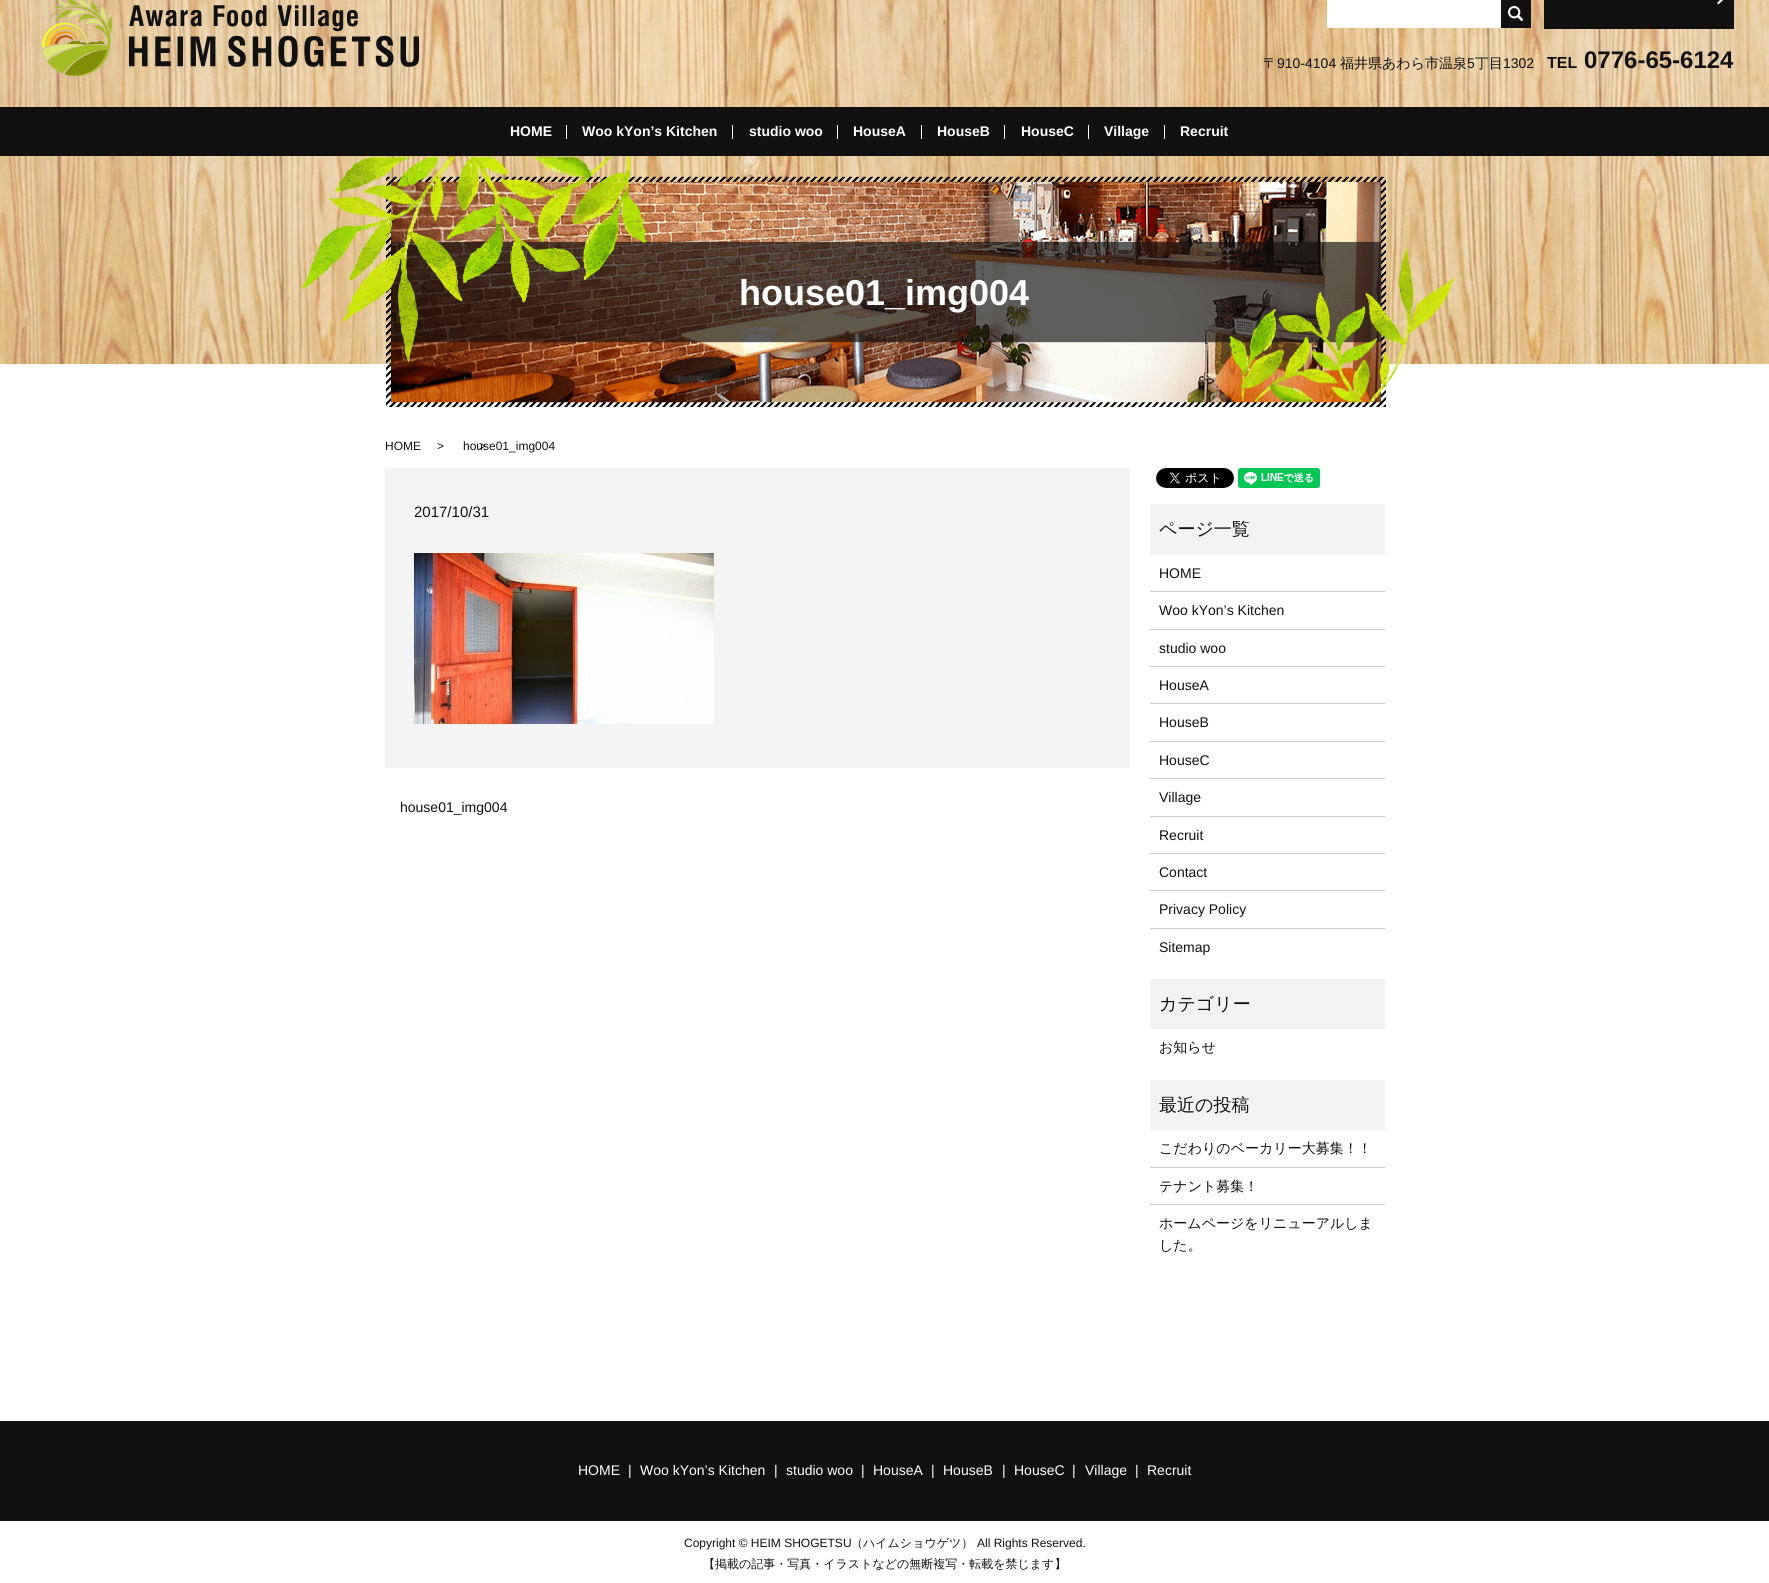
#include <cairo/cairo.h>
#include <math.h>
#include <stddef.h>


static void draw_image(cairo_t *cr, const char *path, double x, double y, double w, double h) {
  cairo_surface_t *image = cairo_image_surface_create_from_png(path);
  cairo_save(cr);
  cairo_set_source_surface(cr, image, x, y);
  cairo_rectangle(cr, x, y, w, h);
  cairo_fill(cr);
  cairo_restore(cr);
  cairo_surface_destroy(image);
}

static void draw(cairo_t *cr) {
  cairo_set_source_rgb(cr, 1, 1, 1);
  cairo_paint(cr);
  draw_image(cr, "images/1.png", 0, 0, 1769, 364);
  draw_image(cr, "images/2.png", 40, 0, 379, 78);
  cairo_set_source_rgb(cr, 17 / 255.0, 17 / 255.0, 17 / 255.0);
  cairo_rectangle(cr, 1544, 0, 190, 29);
  cairo_fill(cr);
  cairo_set_source_rgb(cr, 1, 1, 1);
  cairo_new_path(cr);
  cairo_move_to(cr, 1718.5, -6.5);
  cairo_line_to(cr, 1724, -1);
  cairo_line_to(cr, 1722.5, 0.5);
  cairo_line_to(cr, 1717, -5.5);
  cairo_close_path(cr);
  cairo_fill(cr);
  cairo_new_path(cr);
  cairo_move_to(cr, 1722.5, -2.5);
  cairo_line_to(cr, 1724, -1);
  cairo_line_to(cr, 1718.5, 4.5);
  cairo_line_to(cr, 1717, 3);
  cairo_close_path(cr);
  cairo_fill(cr);
  cairo_set_source_rgb(cr, 17 / 255.0, 17 / 255.0, 17 / 255.0);
  cairo_rectangle(cr, 0, 107, 1769, 49);
  cairo_fill(cr);
  cairo_set_source_rgb(cr, 1, 1, 1);
  cairo_rectangle(cr, 1327, 0, 174, 28);
  cairo_fill(cr);
  cairo_set_source_rgb(cr, 17 / 255.0, 17 / 255.0, 17 / 255.0);
  cairo_rectangle(cr, 1501, 0, 30, 28);
  cairo_fill(cr);
  draw_image(cr, "images/3.png", 1508, 6, 15, 15);
  cairo_set_source_rgb(cr, 1, 1, 1);
  cairo_rectangle(cr, 566, 125, 1, 14);
  cairo_fill(cr);
  cairo_rectangle(cr, 732, 125, 1, 14);
  cairo_fill(cr);
  cairo_rectangle(cr, 837, 125, 1, 14);
  cairo_fill(cr);
  cairo_rectangle(cr, 921, 125, 1, 14);
  cairo_fill(cr);
  cairo_rectangle(cr, 1004, 125, 1, 14);
  cairo_fill(cr);
  cairo_rectangle(cr, 1088, 125, 1, 14);
  cairo_fill(cr);
  cairo_rectangle(cr, 1164, 125, 1, 14);
  cairo_fill(cr);
  draw_image(cr, "images/4.png", 301, 156, 1154, 251);
  cairo_set_source_rgb(cr, 244 / 255.0, 244 / 255.0, 244 / 255.0);
  cairo_rectangle(cr, 385, 468, 745, 300);
  cairo_fill(cr);
  draw_image(cr, "images/5.png", 414, 553, 300, 171);
  draw_image(cr, "images/6.png", 1156, 468, 78, 20);
  draw_image(cr, "images/7.png", 1238, 468, 82, 20);
  cairo_set_source_rgb(cr, 243 / 255.0, 243 / 255.0, 243 / 255.0);
  cairo_rectangle(cr, 1150, 504, 235, 51);
  cairo_fill(cr);
  cairo_set_source_rgb(cr, 204 / 255.0, 204 / 255.0, 204 / 255.0);
  cairo_rectangle(cr, 1150, 591, 235, 1);
  cairo_fill(cr);
  cairo_rectangle(cr, 1150, 629, 235, 1);
  cairo_fill(cr);
  cairo_rectangle(cr, 1150, 666, 235, 1);
  cairo_fill(cr);
  cairo_rectangle(cr, 1150, 703, 235, 1);
  cairo_fill(cr);
  cairo_rectangle(cr, 1150, 741, 235, 1);
  cairo_fill(cr);
  cairo_rectangle(cr, 1150, 778, 235, 1);
  cairo_fill(cr);
  cairo_rectangle(cr, 1150, 816, 235, 1);
  cairo_fill(cr);
  cairo_rectangle(cr, 1150, 853, 235, 1);
  cairo_fill(cr);
  cairo_rectangle(cr, 1150, 890, 235, 1);
  cairo_fill(cr);
  cairo_rectangle(cr, 1150, 928, 235, 1);
  cairo_fill(cr);
  cairo_set_source_rgb(cr, 243 / 255.0, 243 / 255.0, 243 / 255.0);
  cairo_rectangle(cr, 1150, 979, 235, 50);
  cairo_fill(cr);
  cairo_rectangle(cr, 1150, 1080, 235, 50);
  cairo_fill(cr);
  cairo_set_source_rgb(cr, 204 / 255.0, 204 / 255.0, 204 / 255.0);
  cairo_rectangle(cr, 1150, 1167, 235, 1);
  cairo_fill(cr);
  cairo_rectangle(cr, 1150, 1204, 235, 1);
  cairo_fill(cr);
  cairo_set_source_rgb(cr, 17 / 255.0, 17 / 255.0, 17 / 255.0);
  cairo_rectangle(cr, 0, 1421, 1769, 100);
  cairo_fill(cr);
  cairo_select_font_face(cr, "WenQuanYi Zen Hei Medium", CAIRO_FONT_SLANT_NORMAL, CAIRO_FONT_WEIGHT_NORMAL);
  cairo_set_font_size(cr, 14);
  cairo_move_to(cr, 1263, 68);
  cairo_show_text(cr, "〒");
  cairo_select_font_face(cr, "Liberation Sans", CAIRO_FONT_SLANT_NORMAL, CAIRO_FONT_WEIGHT_NORMAL);
  cairo_move_to(cr, 1277, 68);
  cairo_show_text(cr, "910-4104");
  cairo_select_font_face(cr, "WenQuanYi Zen Hei Medium", CAIRO_FONT_SLANT_NORMAL, CAIRO_FONT_WEIGHT_NORMAL);
  cairo_move_to(cr, 1340, 68);
  cairo_show_text(cr, "福井県あわら市温泉");
  cairo_select_font_face(cr, "Liberation Sans", CAIRO_FONT_SLANT_NORMAL, CAIRO_FONT_WEIGHT_NORMAL);
  cairo_move_to(cr, 1467, 68);
  cairo_show_text(cr, "5");
  cairo_select_font_face(cr, "WenQuanYi Zen Hei Medium", CAIRO_FONT_SLANT_NORMAL, CAIRO_FONT_WEIGHT_NORMAL);
  cairo_move_to(cr, 1475, 68);
  cairo_show_text(cr, "丁目");
  cairo_select_font_face(cr, "Liberation Sans", CAIRO_FONT_SLANT_NORMAL, CAIRO_FONT_WEIGHT_NORMAL);
  cairo_move_to(cr, 1503, 68);
  cairo_show_text(cr, "1302");
  cairo_select_font_face(cr, "Liberation Sans", CAIRO_FONT_SLANT_NORMAL, CAIRO_FONT_WEIGHT_BOLD);
  cairo_set_font_size(cr, 16);
  cairo_move_to(cr, 1547, 68);
  cairo_show_text(cr, "TEL");
  cairo_set_font_size(cr, 24);
  cairo_move_to(cr, 1584, 68);
  cairo_show_text(cr, "0776-65-6124");
  cairo_set_font_size(cr, 14);
  cairo_set_source_rgb(cr, 1, 1, 1);
  cairo_move_to(cr, 510, 136);
  cairo_show_text(cr, "HOME");
  cairo_move_to(cr, 582, 136);
  cairo_show_text(cr, "Woo kYon’s Kitchen");
  cairo_move_to(cr, 749, 136);
  cairo_show_text(cr, "studio woo");
  cairo_move_to(cr, 853, 136);
  cairo_show_text(cr, "HouseA");
  cairo_move_to(cr, 937, 136);
  cairo_show_text(cr, "HouseB");
  cairo_move_to(cr, 1021, 136);
  cairo_show_text(cr, "HouseC");
  cairo_move_to(cr, 1104, 136);
  cairo_show_text(cr, "Village");
  cairo_move_to(cr, 1180, 136);
  cairo_show_text(cr, "Recruit");
  cairo_set_font_size(cr, 36);
  cairo_move_to(cr, 739, 305);
  cairo_show_text(cr, "house01_img004");
  cairo_select_font_face(cr, "Liberation Sans", CAIRO_FONT_SLANT_NORMAL, CAIRO_FONT_WEIGHT_NORMAL);
  cairo_set_font_size(cr, 12);
  cairo_set_source_rgb(cr, 17 / 255.0, 17 / 255.0, 17 / 255.0);
  cairo_move_to(cr, 385, 450);
  cairo_show_text(cr, "HOME");
  cairo_move_to(cr, 437, 450);
  cairo_show_text(cr, ">");
  cairo_move_to(cr, 479, 450);
  cairo_show_text(cr, ">");
  cairo_move_to(cr, 463, 450);
  cairo_show_text(cr, "house01_img004");
  cairo_set_font_size(cr, 15);
  cairo_move_to(cr, 414, 517);
  cairo_show_text(cr, "2017/10/31");
  cairo_set_font_size(cr, 14);
  cairo_move_to(cr, 400, 812);
  cairo_show_text(cr, "house01_img004");
  cairo_select_font_face(cr, "WenQuanYi Zen Hei Medium", CAIRO_FONT_SLANT_NORMAL, CAIRO_FONT_WEIGHT_NORMAL);
  cairo_set_font_size(cr, 18);
  cairo_move_to(cr, 1159, 535);
  cairo_show_text(cr, "ページ一覧");
  cairo_select_font_face(cr, "Liberation Sans", CAIRO_FONT_SLANT_NORMAL, CAIRO_FONT_WEIGHT_NORMAL);
  cairo_set_font_size(cr, 14);
  cairo_move_to(cr, 1159, 578);
  cairo_show_text(cr, "HOME");
  cairo_move_to(cr, 1159, 615);
  cairo_show_text(cr, "Woo kYon’s Kitchen");
  cairo_move_to(cr, 1159, 653);
  cairo_show_text(cr, "studio woo");
  cairo_move_to(cr, 1159, 690);
  cairo_show_text(cr, "HouseA");
  cairo_move_to(cr, 1159, 727);
  cairo_show_text(cr, "HouseB");
  cairo_move_to(cr, 1159, 765);
  cairo_show_text(cr, "HouseC");
  cairo_move_to(cr, 1159, 802);
  cairo_show_text(cr, "Village");
  cairo_move_to(cr, 1159, 840);
  cairo_show_text(cr, "Recruit");
  cairo_move_to(cr, 1159, 877);
  cairo_show_text(cr, "Contact");
  cairo_move_to(cr, 1159, 914);
  cairo_show_text(cr, "Privacy Policy");
  cairo_move_to(cr, 1159, 952);
  cairo_show_text(cr, "Sitemap");
  cairo_select_font_face(cr, "WenQuanYi Zen Hei Medium", CAIRO_FONT_SLANT_NORMAL, CAIRO_FONT_WEIGHT_NORMAL);
  cairo_set_font_size(cr, 18);
  cairo_move_to(cr, 1159, 1010);
  cairo_show_text(cr, "カテゴリー");
  cairo_set_font_size(cr, 14);
  cairo_move_to(cr, 1159, 1052);
  cairo_show_text(cr, "お知らせ");
  cairo_set_font_size(cr, 18);
  cairo_move_to(cr, 1159, 1111);
  cairo_show_text(cr, "最近の投稿");
  cairo_set_font_size(cr, 14);
  cairo_move_to(cr, 1159, 1153);
  cairo_show_text(cr, "こだわりのベーカリー大募集！！");
  cairo_move_to(cr, 1159, 1191);
  cairo_show_text(cr, "テナント募集！");
  cairo_move_to(cr, 1159, 1228);
  cairo_show_text(cr, "ホームページをリニューアルしま");
  cairo_move_to(cr, 1159, 1250);
  cairo_show_text(cr, "した。");
  cairo_select_font_face(cr, "Liberation Sans", CAIRO_FONT_SLANT_NORMAL, CAIRO_FONT_WEIGHT_NORMAL);
  cairo_set_source_rgb(cr, 1, 1, 1);
  cairo_move_to(cr, 578, 1475);
  cairo_show_text(cr, "HOME");
  cairo_move_to(cr, 628, 1475);
  cairo_show_text(cr, "|");
  cairo_move_to(cr, 640, 1475);
  cairo_show_text(cr, "Woo kYon’s Kitchen");
  cairo_move_to(cr, 774, 1475);
  cairo_show_text(cr, "|");
  cairo_move_to(cr, 786, 1475);
  cairo_show_text(cr, "studio woo");
  cairo_move_to(cr, 861, 1475);
  cairo_show_text(cr, "|");
  cairo_move_to(cr, 873, 1475);
  cairo_show_text(cr, "HouseA");
  cairo_move_to(cr, 931, 1475);
  cairo_show_text(cr, "|");
  cairo_move_to(cr, 943, 1475);
  cairo_show_text(cr, "HouseB");
  cairo_move_to(cr, 1002, 1475);
  cairo_show_text(cr, "|");
  cairo_move_to(cr, 1014, 1475);
  cairo_show_text(cr, "HouseC");
  cairo_move_to(cr, 1072, 1475);
  cairo_show_text(cr, "|");
  cairo_move_to(cr, 1085, 1475);
  cairo_show_text(cr, "Village");
  cairo_move_to(cr, 1135, 1475);
  cairo_show_text(cr, "|");
  cairo_move_to(cr, 1147, 1475);
  cairo_show_text(cr, "Recruit");
  cairo_set_font_size(cr, 12);
  cairo_set_source_rgb(cr, 17 / 255.0, 17 / 255.0, 17 / 255.0);
  cairo_move_to(cr, 684, 1547);
  cairo_show_text(cr, "Copyright © HEIM SHOGETSU");
  cairo_select_font_face(cr, "WenQuanYi Zen Hei Medium", CAIRO_FONT_SLANT_NORMAL, CAIRO_FONT_WEIGHT_NORMAL);
  cairo_move_to(cr, 851, 1547);
  cairo_show_text(cr, "（ハイムショウゲツ）");
  cairo_select_font_face(cr, "Liberation Sans", CAIRO_FONT_SLANT_NORMAL, CAIRO_FONT_WEIGHT_NORMAL);
  cairo_move_to(cr, 977, 1547);
  cairo_show_text(cr, "All Rights Reserved.");
  cairo_select_font_face(cr, "WenQuanYi Zen Hei Medium", CAIRO_FONT_SLANT_NORMAL, CAIRO_FONT_WEIGHT_NORMAL);
  cairo_move_to(cr, 703, 1568);
  cairo_show_text(cr, "【掲載の記事・写真・イラストなどの無断複写・転載を禁じます】");
}

int main(void) {
  cairo_surface_t *surface = cairo_image_surface_create(CAIRO_FORMAT_RGB24, 1769, 1583);
  cairo_t *cr = cairo_create(surface);
  cairo_font_options_t *options = cairo_font_options_create();
  cairo_font_options_set_hint_metrics(options, CAIRO_HINT_METRICS_OFF);
  cairo_font_options_set_hint_style(options, CAIRO_HINT_STYLE_NONE);
  cairo_set_font_options(cr, options);
  cairo_set_miter_limit(cr, 4);
  draw(cr);
  cairo_surface_write_to_png(surface, "out.png");
  cairo_font_options_destroy(options);
  cairo_destroy(cr);
  cairo_surface_destroy(surface);
  return 0;
}
